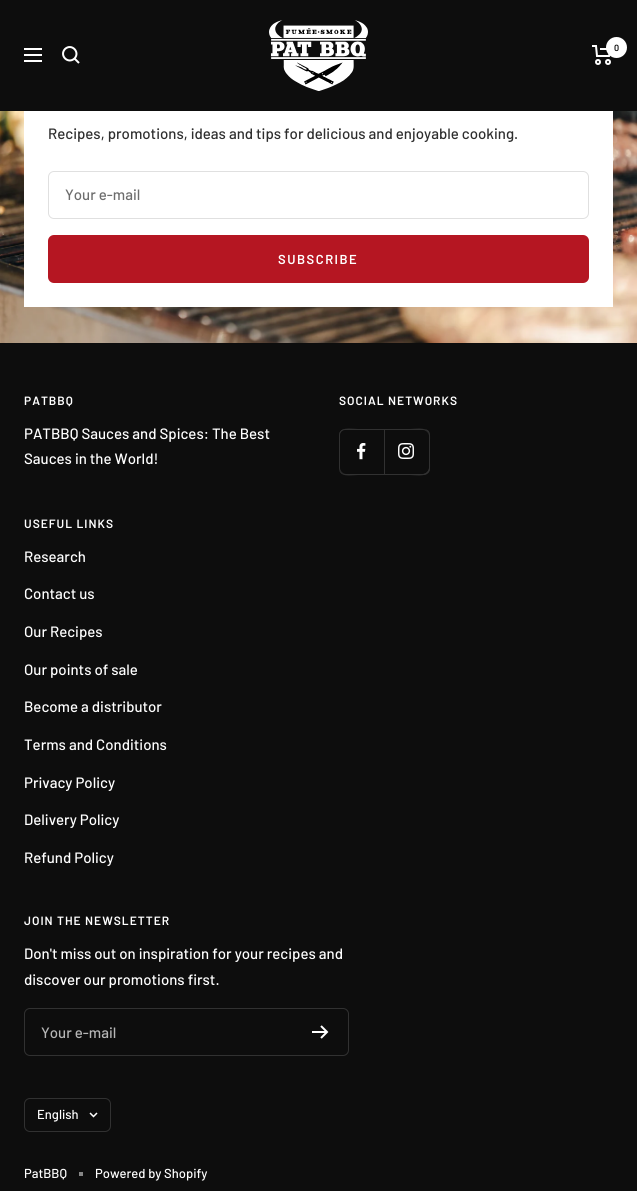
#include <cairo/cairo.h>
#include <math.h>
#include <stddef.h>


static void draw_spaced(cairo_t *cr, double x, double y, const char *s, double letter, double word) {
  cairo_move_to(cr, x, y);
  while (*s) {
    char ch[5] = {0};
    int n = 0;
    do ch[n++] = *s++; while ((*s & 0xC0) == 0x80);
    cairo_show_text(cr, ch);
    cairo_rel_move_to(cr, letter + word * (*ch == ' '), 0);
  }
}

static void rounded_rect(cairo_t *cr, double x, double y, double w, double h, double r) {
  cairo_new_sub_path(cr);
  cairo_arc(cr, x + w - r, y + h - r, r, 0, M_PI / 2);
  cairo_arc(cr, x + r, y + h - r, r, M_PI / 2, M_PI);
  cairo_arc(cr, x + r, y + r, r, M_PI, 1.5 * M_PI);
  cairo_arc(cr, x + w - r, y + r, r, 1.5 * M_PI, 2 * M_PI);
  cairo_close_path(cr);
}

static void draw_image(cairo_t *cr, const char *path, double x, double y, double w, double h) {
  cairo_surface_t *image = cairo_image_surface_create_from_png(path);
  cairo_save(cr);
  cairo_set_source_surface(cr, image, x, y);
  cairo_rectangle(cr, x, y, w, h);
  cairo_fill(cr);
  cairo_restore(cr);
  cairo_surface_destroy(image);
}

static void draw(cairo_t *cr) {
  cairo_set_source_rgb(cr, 13 / 255.0, 13 / 255.0, 13 / 255.0);
  cairo_paint(cr);
  cairo_new_path(cr);
  cairo_move_to(cr, 24, 49);
  cairo_line_to(cr, 42, 49);
  cairo_move_to(cr, 24, 61);
  cairo_line_to(cr, 42, 61);
  cairo_close_path(cr);
  cairo_move_to(cr, 24, 55);
  cairo_line_to(cr, 42, 55);
  cairo_close_path(cr);
  cairo_move_to(cr, 74.5, 58.5);
  cairo_curve_to(cr, 80.5, 52, 71.5, 43, 65, 49);
  cairo_curve_to(cr, 59, 55.5, 68, 64.5, 74.5, 58.5);
  cairo_close_path(cr);
  cairo_move_to(cr, 74.5, 58.5);
  cairo_line_to(cr, 79, 63);
  cairo_set_source_rgb(cr, 1, 1, 1);
  cairo_stroke(cr);
  draw_image(cr, "images/1.png", 269, 20, 99, 71);
  cairo_new_path(cr);
  cairo_move_to(cr, 592, 46);
  cairo_line_to(cr, 596, 46);
  cairo_line_to(cr, 597, 56);
  cairo_line_to(cr, 609, 56);
  cairo_line_to(cr, 611, 49);
  cairo_line_to(cr, 600, 49);
  cairo_stroke(cr);
  cairo_arc(cr, 598, 62, 2, 0, 2 * M_PI);
  cairo_stroke(cr);
  cairo_arc(cr, 608, 62, 2, 0, 2 * M_PI);
  cairo_stroke(cr);
  cairo_arc(cr, 616.5, 47.5, 10.5, 0, 2 * M_PI);
  cairo_fill(cr);
  draw_image(cr, "images/2.png", 0, 111, 637, 232);
  cairo_rectangle(cr, 24, 111, 589, 196);
  cairo_fill(cr);
  rounded_rect(cr, 48.5, 171.5, 540, 47, 5.5);
  cairo_set_source_rgb(cr, 224 / 255.0, 224 / 255.0, 224 / 255.0);
  cairo_set_line_width(cr, 1);
  cairo_stroke(cr);
  cairo_set_source_rgb(cr, 181 / 255.0, 22 / 255.0, 34 / 255.0);
  rounded_rect(cr, 48, 235, 541, 48, 6);
  cairo_fill(cr);
  cairo_set_source_rgb(cr, 49 / 255.0, 49 / 255.0, 49 / 255.0);
  cairo_new_path(cr);
  cairo_move_to(cr, 339, 468);
  cairo_curve_to(cr, 339, 478, 351, 475, 358, 475);
  cairo_line_to(cr, 384, 475);
  cairo_line_to(cr, 384, 474);
  cairo_line_to(cr, 345, 474);
  cairo_curve_to(cr, 342, 474, 339, 471, 339, 468);
  cairo_close_path(cr);
  cairo_fill(cr);
  cairo_rectangle(cr, 384, 429, 1, 45);
  cairo_fill(cr);
  cairo_new_path(cr);
  cairo_move_to(cr, 345, 430);
  cairo_line_to(cr, 384, 430);
  cairo_line_to(cr, 384, 429);
  cairo_line_to(cr, 358, 429);
  cairo_curve_to(cr, 351, 429, 339, 426, 339, 436);
  cairo_curve_to(cr, 339, 433, 342, 430, 345, 430);
  cairo_close_path(cr);
  cairo_fill(cr);
  cairo_new_path(cr);
  cairo_move_to(cr, 345, 429);
  cairo_curve_to(cr, 342, 429, 339, 432, 339, 435);
  cairo_line_to(cr, 339, 468);
  cairo_curve_to(cr, 339, 471, 342, 474, 345, 474);
  cairo_line_to(cr, 346, 474);
  cairo_curve_to(cr, 343, 474, 340, 471, 340, 468);
  cairo_line_to(cr, 340, 435);
  cairo_curve_to(cr, 340, 432, 343, 429, 346, 429);
  cairo_close_path(cr);
  cairo_fill(cr);
  draw_image(cr, "images/3.png", 357, 443, 9, 17);
  cairo_new_path(cr);
  cairo_move_to(cr, 385, 474);
  cairo_line_to(cr, 385, 475);
  cairo_line_to(cr, 424, 475);
  cairo_curve_to(cr, 427, 475, 430, 472, 430, 469);
  cairo_line_to(cr, 430, 436);
  cairo_curve_to(cr, 430, 434, 429, 432, 428, 431);
  cairo_curve_to(cr, 429, 432, 429, 434, 429, 435);
  cairo_line_to(cr, 429, 468);
  cairo_curve_to(cr, 429, 471, 426, 474, 423, 474);
  cairo_close_path(cr);
  cairo_fill(cr);
  cairo_new_path(cr);
  cairo_move_to(cr, 384, 474);
  cairo_line_to(cr, 384, 475);
  cairo_line_to(cr, 410, 475);
  cairo_curve_to(cr, 417, 475, 429, 478, 429, 468);
  cairo_curve_to(cr, 429, 471, 426, 474, 423, 474);
  cairo_close_path(cr);
  cairo_fill(cr);
  cairo_new_path(cr);
  cairo_move_to(cr, 423, 474);
  cairo_curve_to(cr, 431, 474, 430, 468, 430, 462);
  cairo_line_to(cr, 430, 440);
  cairo_curve_to(cr, 430, 435, 431, 429, 423, 429);
  cairo_curve_to(cr, 426, 429, 429, 432, 429, 435);
  cairo_line_to(cr, 429, 468);
  cairo_curve_to(cr, 429, 471, 426, 474, 423, 474);
  cairo_close_path(cr);
  cairo_fill(cr);
  cairo_new_path(cr);
  cairo_move_to(cr, 384, 430);
  cairo_line_to(cr, 423, 430);
  cairo_curve_to(cr, 426, 430, 429, 433, 429, 436);
  cairo_curve_to(cr, 429, 426, 417, 429, 410, 429);
  cairo_line_to(cr, 384, 429);
  cairo_close_path(cr);
  cairo_fill(cr);
  draw_image(cr, "images/4.png", 398, 443, 16, 16);
  rounded_rect(cr, 24.5, 1008.5, 324, 47, 5.5);
  cairo_stroke(cr);
  cairo_new_path(cr);
  cairo_move_to(cr, 312, 1032);
  cairo_line_to(cr, 327, 1032);
  cairo_move_to(cr, 321, 1026);
  cairo_line_to(cr, 327, 1032);
  cairo_line_to(cr, 321, 1038);
  cairo_set_source_rgb(cr, 1, 1, 1);
  cairo_set_line_width(cr, 2);
  cairo_stroke(cr);
  rounded_rect(cr, 24.5, 1098.5, 86, 33, 5.5);
  cairo_set_source_rgb(cr, 49 / 255.0, 49 / 255.0, 49 / 255.0);
  cairo_set_line_width(cr, 1);
  cairo_stroke(cr);
  cairo_new_path(cr);
  cairo_move_to(cr, 90, 1113);
  cairo_line_to(cr, 93.5, 1116.5);
  cairo_line_to(cr, 97, 1113);
  cairo_set_source_rgb(cr, 1, 1, 1);
  cairo_set_line_width(cr, 1.5);
  cairo_stroke(cr);
  cairo_set_source_rgb(cr, 134 / 255.0, 134 / 255.0, 134 / 255.0);
  cairo_rectangle(cr, 79, 1172, 4, 4);
  cairo_fill(cr);
  cairo_select_font_face(cr, "Barlow SemiBold", CAIRO_FONT_SLANT_NORMAL, CAIRO_FONT_WEIGHT_NORMAL);
  cairo_set_font_size(cr, 9);
  cairo_set_source_rgb(cr, 13 / 255.0, 13 / 255.0, 13 / 255.0);
  cairo_move_to(cr, 614, 51);
  cairo_show_text(cr, "0");
  cairo_select_font_face(cr, "Barlow Medium", CAIRO_FONT_SLANT_NORMAL, CAIRO_FONT_WEIGHT_NORMAL);
  cairo_set_font_size(cr, 15);
  cairo_set_source_rgb(cr, 46 / 255.0, 46 / 255.0, 46 / 255.0);
  cairo_move_to(cr, 48, 139);
  cairo_show_text(cr, "Recipes, promotions, ideas and tips for delicious and enjoyable cooking.");
  cairo_set_source_rgb(cr, 109 / 255.0, 109 / 255.0, 109 / 255.0);
  cairo_move_to(cr, 65, 200);
  cairo_show_text(cr, "Your e-mail");
  cairo_select_font_face(cr, "Barlow SemiBold", CAIRO_FONT_SLANT_NORMAL, CAIRO_FONT_WEIGHT_NORMAL);
  cairo_set_font_size(cr, 13);
  cairo_set_source_rgb(cr, 1, 1, 1);
  draw_spaced(cr, 278, 264, "SUBSCRIBE", 1.5, 0);
  cairo_set_font_size(cr, 12);
  draw_spaced(cr, 24, 405, "PATBBQ", 1, 0);
  cairo_select_font_face(cr, "Barlow Medium", CAIRO_FONT_SLANT_NORMAL, CAIRO_FONT_WEIGHT_NORMAL);
  cairo_set_font_size(cr, 15);
  cairo_move_to(cr, 24, 439);
  cairo_show_text(cr, "PATBBQ Sauces and Spices: The Best");
  cairo_move_to(cr, 24, 464);
  cairo_show_text(cr, "Sauces in the World!");
  cairo_select_font_face(cr, "Barlow SemiBold", CAIRO_FONT_SLANT_NORMAL, CAIRO_FONT_WEIGHT_NORMAL);
  cairo_set_font_size(cr, 12);
  draw_spaced(cr, 339, 405, "SOCIAL NETWORKS", 1, 0);
  draw_spaced(cr, 24, 528, "USEFUL LINKS", 1, 0);
  cairo_select_font_face(cr, "Barlow Medium", CAIRO_FONT_SLANT_NORMAL, CAIRO_FONT_WEIGHT_NORMAL);
  cairo_set_font_size(cr, 15);
  cairo_move_to(cr, 24, 562);
  cairo_show_text(cr, "Research");
  cairo_move_to(cr, 24, 599);
  cairo_show_text(cr, "Contact us");
  cairo_move_to(cr, 24, 637);
  cairo_show_text(cr, "Our Recipes");
  cairo_move_to(cr, 24, 675);
  cairo_show_text(cr, "Our points of sale");
  cairo_move_to(cr, 24, 712);
  cairo_show_text(cr, "Become a distributor");
  cairo_move_to(cr, 24, 750);
  cairo_show_text(cr, "Terms and Conditions");
  cairo_move_to(cr, 24, 788);
  cairo_show_text(cr, "Privacy Policy");
  cairo_move_to(cr, 24, 825);
  cairo_show_text(cr, "Delivery Policy");
  cairo_move_to(cr, 24, 863);
  cairo_show_text(cr, "Refund Policy");
  cairo_select_font_face(cr, "Barlow SemiBold", CAIRO_FONT_SLANT_NORMAL, CAIRO_FONT_WEIGHT_NORMAL);
  cairo_set_font_size(cr, 12);
  draw_spaced(cr, 24, 925, "JOIN THE NEWSLETTER", 1, 0);
  cairo_select_font_face(cr, "Barlow Medium", CAIRO_FONT_SLANT_NORMAL, CAIRO_FONT_WEIGHT_NORMAL);
  cairo_set_font_size(cr, 15);
  cairo_move_to(cr, 24, 959);
  cairo_show_text(cr, "Don't miss out on inspiration for your recipes and");
  cairo_move_to(cr, 24, 985);
  cairo_show_text(cr, "discover our promotions first.");
  cairo_set_source_rgb(cr, 182 / 255.0, 182 / 255.0, 182 / 255.0);
  cairo_move_to(cr, 41, 1038);
  cairo_show_text(cr, "Your e-mail");
  cairo_set_font_size(cr, 13);
  cairo_set_source_rgb(cr, 1, 1, 1);
  cairo_move_to(cr, 37, 1119);
  cairo_show_text(cr, "English");
  cairo_move_to(cr, 24, 1178);
  cairo_show_text(cr, "PatBBQ");
  cairo_move_to(cr, 95, 1178);
  cairo_show_text(cr, "Powered by Shopify");
}

int main(void) {
  cairo_surface_t *surface = cairo_image_surface_create(CAIRO_FORMAT_RGB24, 637, 1191);
  cairo_t *cr = cairo_create(surface);
  cairo_font_options_t *options = cairo_font_options_create();
  cairo_font_options_set_hint_metrics(options, CAIRO_HINT_METRICS_OFF);
  cairo_font_options_set_hint_style(options, CAIRO_HINT_STYLE_NONE);
  cairo_set_font_options(cr, options);
  cairo_set_miter_limit(cr, 4);
  draw(cr);
  cairo_surface_write_to_png(surface, "out.png");
  cairo_font_options_destroy(options);
  cairo_destroy(cr);
  cairo_surface_destroy(surface);
  return 0;
}
